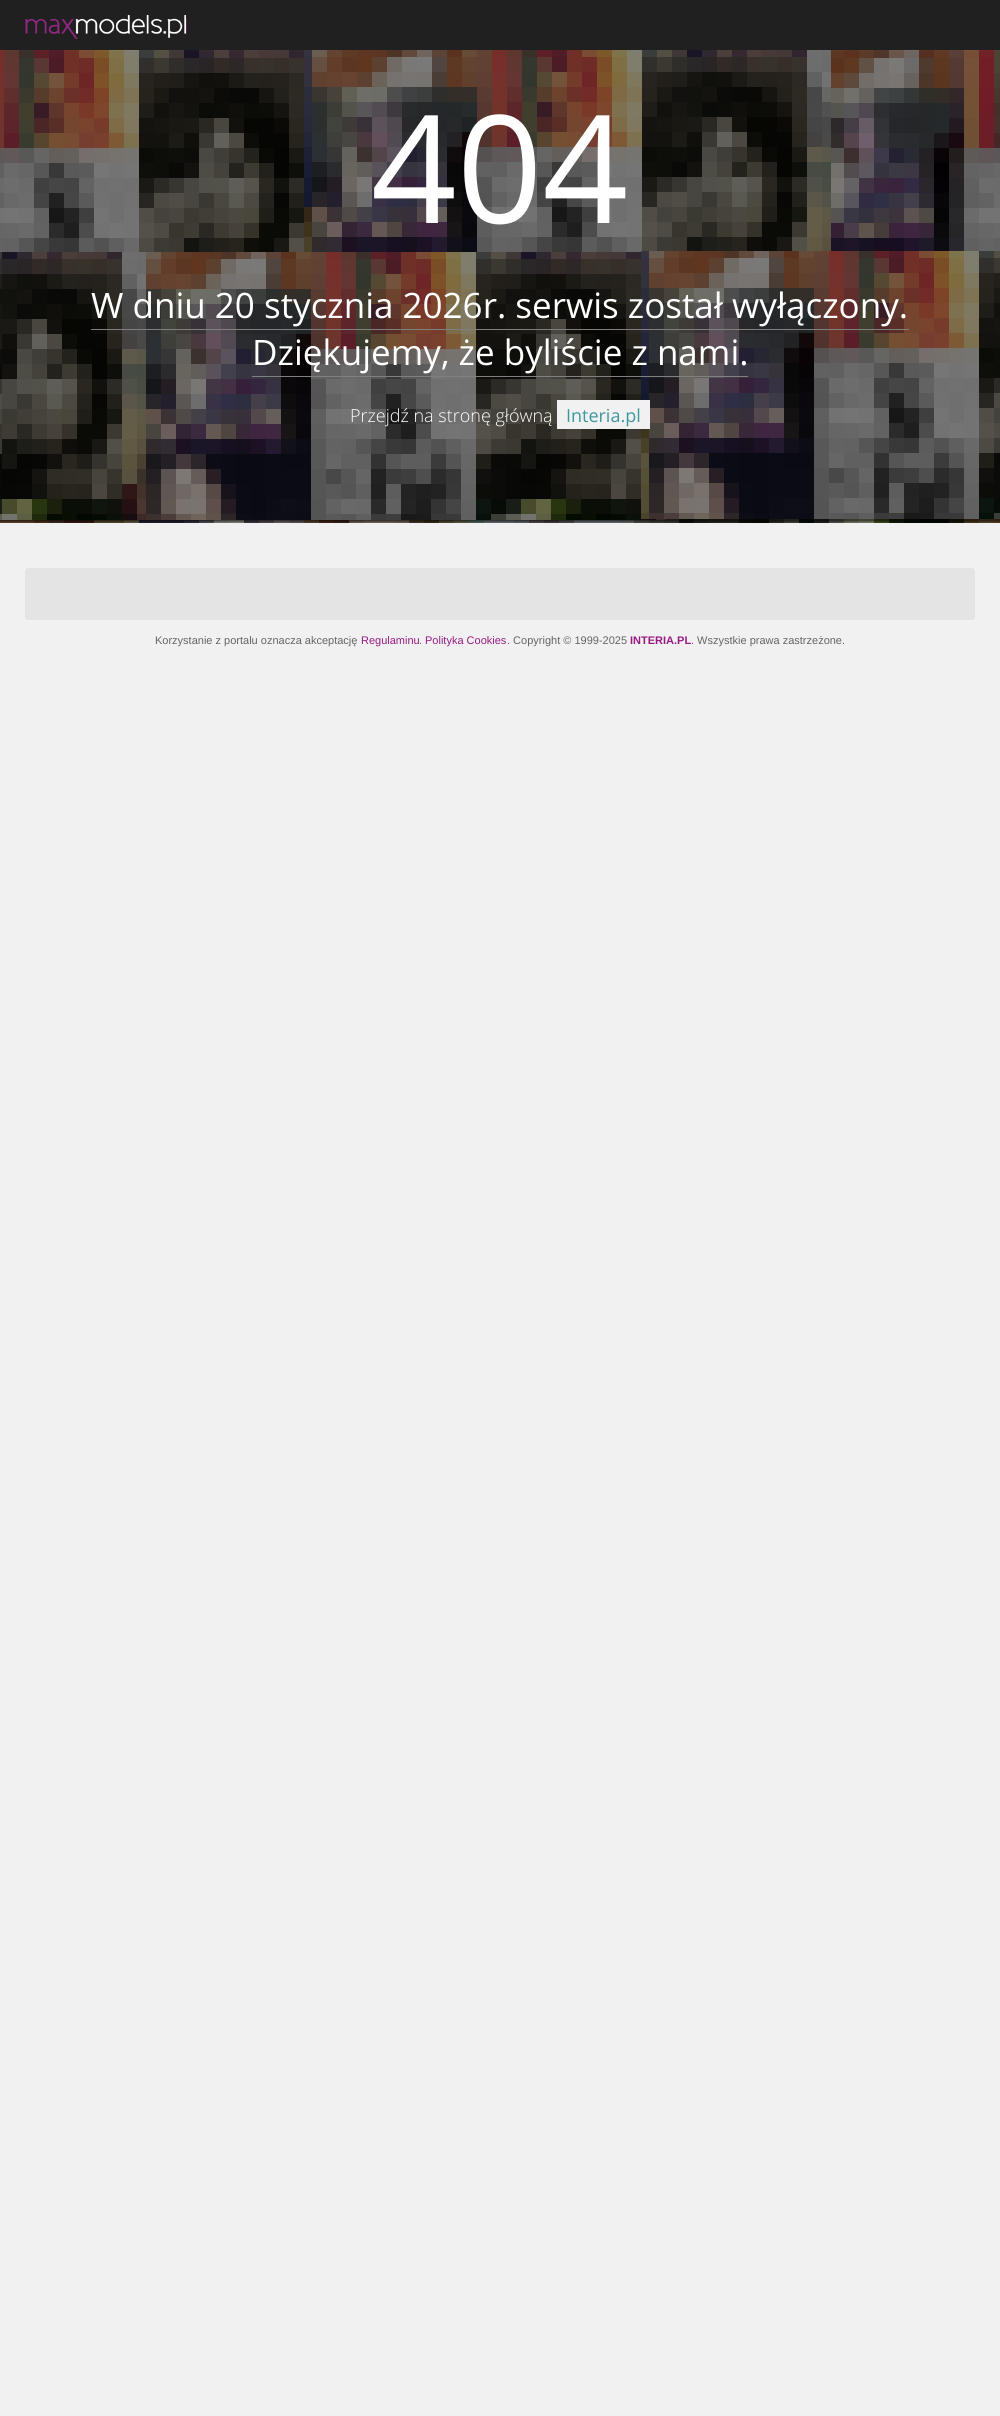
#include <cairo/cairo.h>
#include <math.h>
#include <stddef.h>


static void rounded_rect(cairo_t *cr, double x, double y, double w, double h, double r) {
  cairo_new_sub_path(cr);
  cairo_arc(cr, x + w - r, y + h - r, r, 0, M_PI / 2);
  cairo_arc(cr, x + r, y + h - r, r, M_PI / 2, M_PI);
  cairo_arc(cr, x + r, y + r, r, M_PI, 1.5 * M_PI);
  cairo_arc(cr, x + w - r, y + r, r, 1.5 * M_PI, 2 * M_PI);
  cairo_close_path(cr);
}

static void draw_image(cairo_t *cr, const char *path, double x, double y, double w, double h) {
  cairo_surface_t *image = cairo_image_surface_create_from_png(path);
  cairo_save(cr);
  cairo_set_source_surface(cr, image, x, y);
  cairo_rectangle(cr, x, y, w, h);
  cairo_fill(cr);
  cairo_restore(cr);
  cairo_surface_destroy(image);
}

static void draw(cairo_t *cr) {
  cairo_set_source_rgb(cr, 241 / 255.0, 241 / 255.0, 241 / 255.0);
  cairo_paint(cr);
  cairo_set_source_rgb(cr, 33 / 255.0, 32 / 255.0, 32 / 255.0);
  cairo_rectangle(cr, 0, 0, 1000, 50);
  cairo_fill(cr);
  draw_image(cr, "images/1.png", 25, 15, 162, 24);
  draw_image(cr, "images/2.png", 0, 50, 1000, 473);
  cairo_set_source_rgb(cr, 128 / 255.0, 128 / 255.0, 128 / 255.0);
  cairo_rectangle(cr, 91, 329, 818, 1);
  cairo_fill(cr);
  cairo_rectangle(cr, 252, 376, 496, 1);
  cairo_fill(cr);
  cairo_set_source_rgb(cr, 241 / 255.0, 241 / 255.0, 241 / 255.0);
  cairo_rectangle(cr, 557, 400, 93, 29);
  cairo_fill(cr);
  cairo_set_source_rgb(cr, 228 / 255.0, 228 / 255.0, 228 / 255.0);
  rounded_rect(cr, 25, 568, 950, 52, 3);
  cairo_fill(cr);
  cairo_select_font_face(cr, "Open Sans", CAIRO_FONT_SLANT_NORMAL, CAIRO_FONT_WEIGHT_NORMAL);
  cairo_set_font_size(cr, 150);
  cairo_set_source_rgb(cr, 1, 1, 1);
  cairo_move_to(cr, 371, 223);
  cairo_show_text(cr, "404");
  cairo_set_font_size(cr, 35);
  cairo_move_to(cr, 91, 318);
  cairo_show_text(cr, "W dniu 20 stycznia 2026r. serwis został wyłączony.");
  cairo_move_to(cr, 252, 365);
  cairo_show_text(cr, "Dziękujemy, że byliście z nami.");
  cairo_select_font_face(cr, "Open Sans Light", CAIRO_FONT_SLANT_NORMAL, CAIRO_FONT_WEIGHT_NORMAL);
  cairo_set_font_size(cr, 18);
  cairo_move_to(cr, 350, 422);
  cairo_show_text(cr, "Przejdź na stronę główną");
  cairo_select_font_face(cr, "Open Sans", CAIRO_FONT_SLANT_NORMAL, CAIRO_FONT_WEIGHT_NORMAL);
  cairo_set_source_rgb(cr, 61 / 255.0, 152 / 255.0, 158 / 255.0);
  cairo_move_to(cr, 566, 422);
  cairo_show_text(cr, "Interia.pl");
  cairo_select_font_face(cr, "Liberation Sans", CAIRO_FONT_SLANT_NORMAL, CAIRO_FONT_WEIGHT_NORMAL);
  cairo_set_font_size(cr, 11);
  cairo_set_source_rgb(cr, 101 / 255.0, 100 / 255.0, 97 / 255.0);
  cairo_move_to(cr, 155, 644);
  cairo_show_text(cr, "Korzystanie z portalu oznacza akceptację");
  cairo_set_source_rgb(cr, 151 / 255.0, 27 / 255.0, 132 / 255.0);
  cairo_move_to(cr, 361, 644);
  cairo_show_text(cr, "Regulaminu");
  cairo_set_source_rgb(cr, 101 / 255.0, 100 / 255.0, 97 / 255.0);
  cairo_move_to(cr, 419, 644);
  cairo_show_text(cr, ".");
  cairo_set_source_rgb(cr, 151 / 255.0, 27 / 255.0, 132 / 255.0);
  cairo_move_to(cr, 425, 644);
  cairo_show_text(cr, "Polityka Cookies");
  cairo_set_source_rgb(cr, 101 / 255.0, 100 / 255.0, 97 / 255.0);
  cairo_move_to(cr, 507, 644);
  cairo_show_text(cr, ". Copyright © 1999-2025");
  cairo_select_font_face(cr, "Liberation Sans", CAIRO_FONT_SLANT_NORMAL, CAIRO_FONT_WEIGHT_BOLD);
  cairo_set_source_rgb(cr, 151 / 255.0, 27 / 255.0, 132 / 255.0);
  cairo_move_to(cr, 630, 644);
  cairo_show_text(cr, "INTERIA.PL");
  cairo_select_font_face(cr, "Liberation Sans", CAIRO_FONT_SLANT_NORMAL, CAIRO_FONT_WEIGHT_NORMAL);
  cairo_set_source_rgb(cr, 101 / 255.0, 100 / 255.0, 97 / 255.0);
  cairo_move_to(cr, 691, 644);
  cairo_show_text(cr, ". Wszystkie prawa zastrzeżone.");
}

int main(void) {
  cairo_surface_t *surface = cairo_image_surface_create(CAIRO_FORMAT_RGB24, 1000, 2416);
  cairo_t *cr = cairo_create(surface);
  cairo_font_options_t *options = cairo_font_options_create();
  cairo_font_options_set_hint_metrics(options, CAIRO_HINT_METRICS_OFF);
  cairo_font_options_set_hint_style(options, CAIRO_HINT_STYLE_NONE);
  cairo_set_font_options(cr, options);
  cairo_set_miter_limit(cr, 4);
  draw(cr);
  cairo_surface_write_to_png(surface, "out.png");
  cairo_font_options_destroy(options);
  cairo_destroy(cr);
  cairo_surface_destroy(surface);
  return 0;
}
